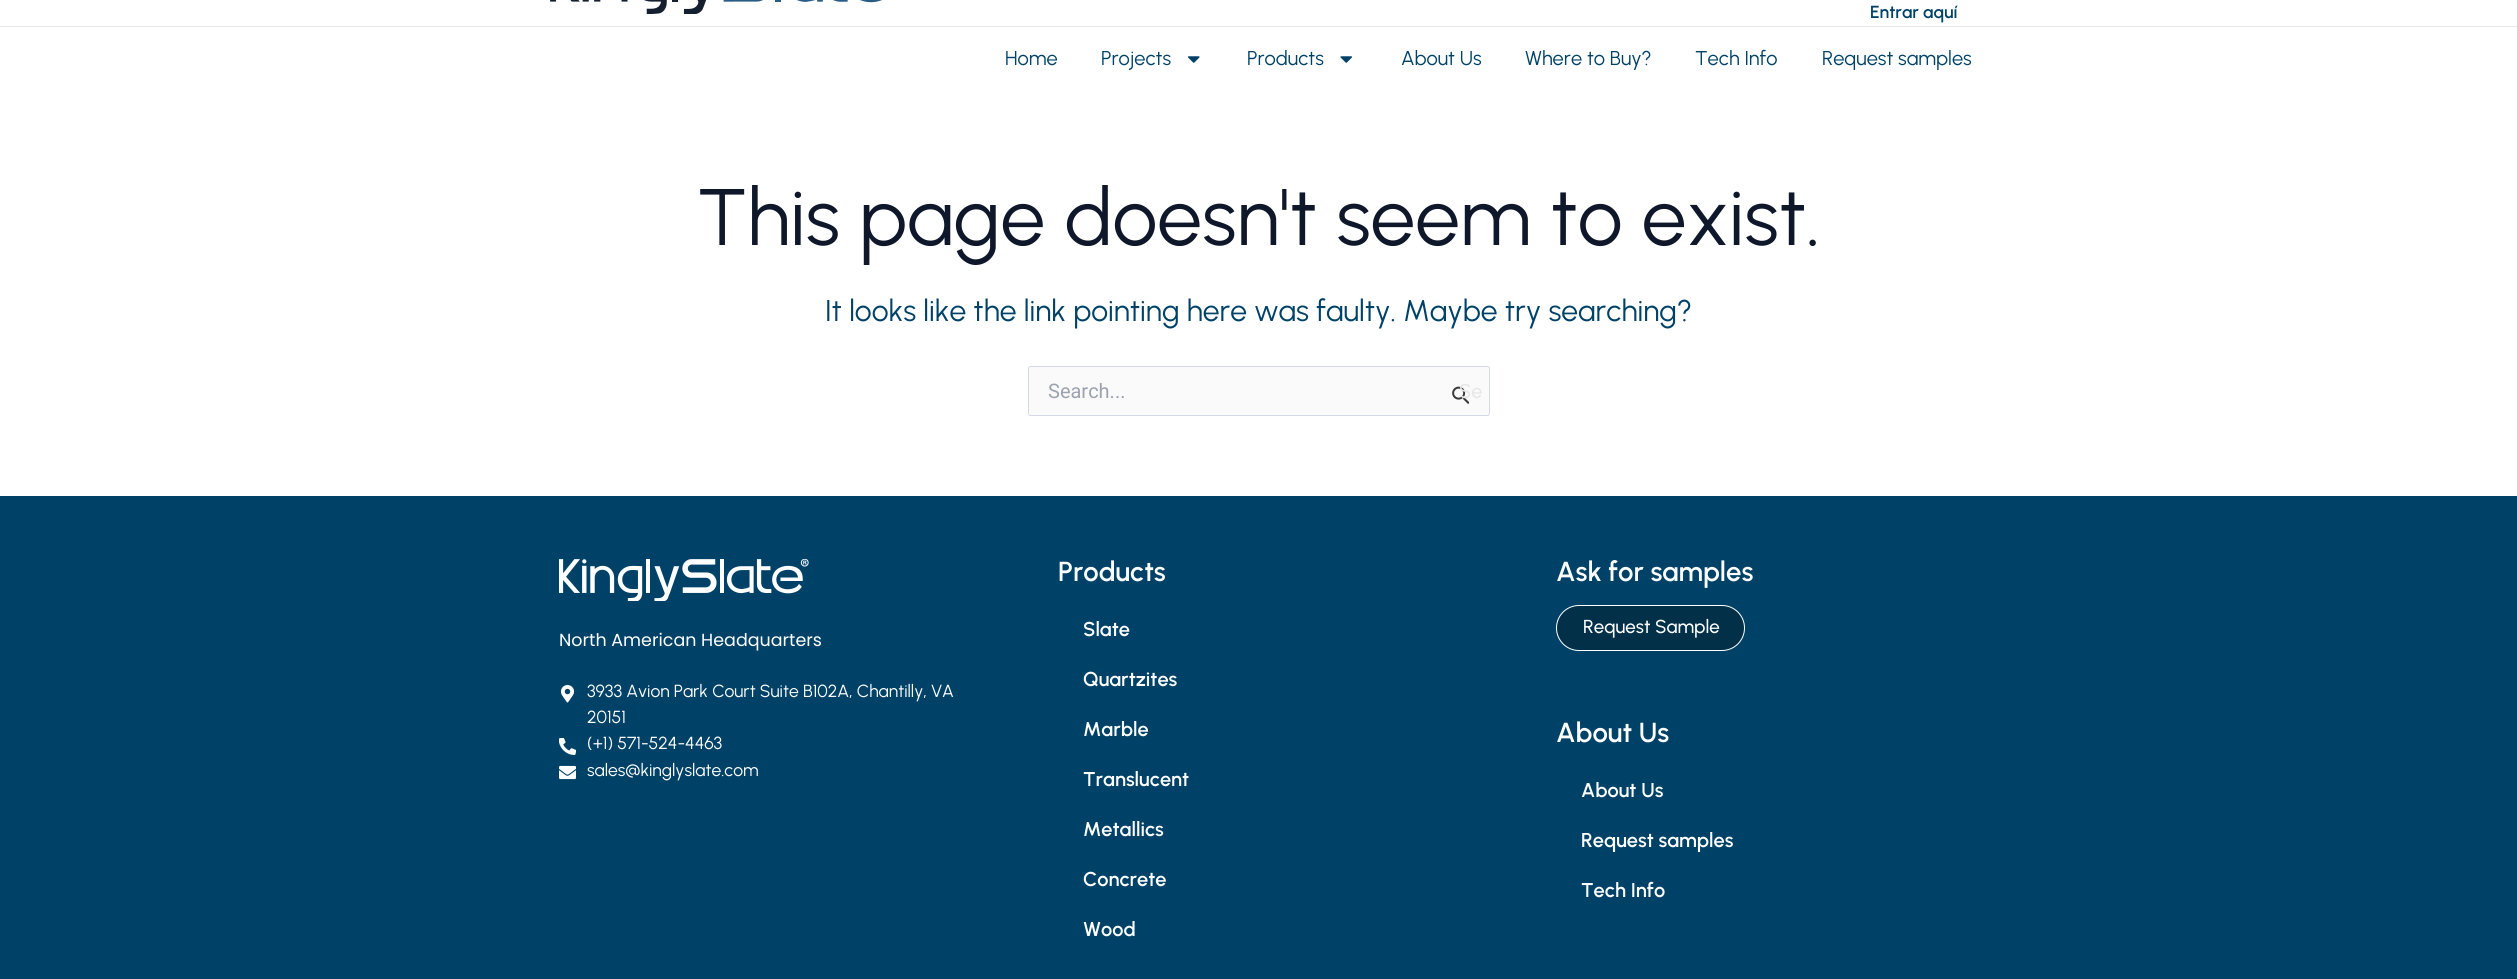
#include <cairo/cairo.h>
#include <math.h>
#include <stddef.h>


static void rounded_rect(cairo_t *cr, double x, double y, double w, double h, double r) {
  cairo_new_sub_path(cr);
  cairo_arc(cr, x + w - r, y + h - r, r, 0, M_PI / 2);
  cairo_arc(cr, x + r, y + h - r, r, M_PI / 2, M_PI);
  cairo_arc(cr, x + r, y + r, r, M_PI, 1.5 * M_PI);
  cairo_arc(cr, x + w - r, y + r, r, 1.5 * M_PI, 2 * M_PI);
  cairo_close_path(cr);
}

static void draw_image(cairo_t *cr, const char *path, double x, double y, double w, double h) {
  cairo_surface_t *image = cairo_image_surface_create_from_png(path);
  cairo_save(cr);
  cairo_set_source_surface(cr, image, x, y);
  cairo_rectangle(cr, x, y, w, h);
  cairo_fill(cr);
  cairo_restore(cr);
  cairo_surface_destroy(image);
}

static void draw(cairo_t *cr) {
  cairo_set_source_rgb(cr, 1, 1, 1);
  cairo_paint(cr);
  cairo_set_source_rgb(cr, 232 / 255.0, 232 / 255.0, 232 / 255.0);
  cairo_rectangle(cr, 0, 26, 2517, 1);
  cairo_fill(cr);
  draw_image(cr, "images/1.png", 550, 0, 332, 14);
  draw_image(cr, "images/2.png", 1188, 56, 12, 7);
  draw_image(cr, "images/3.png", 1340, 56, 12, 7);
  cairo_set_source_rgb(cr, 250 / 255.0, 250 / 255.0, 250 / 255.0);
  rounded_rect(cr, 1028.5, 366.5, 461, 49, 2);
  cairo_fill_preserve(cr);
  cairo_set_source_rgb(cr, 209 / 255.0, 218 / 255.0, 229 / 255.0);
  cairo_set_line_width(cr, 1);
  cairo_stroke(cr);
  draw_image(cr, "images/4.png", 1452, 386, 17, 18);
  cairo_set_source_rgb(cr, 0, 66 / 255.0, 103 / 255.0);
  cairo_rectangle(cr, 0, 496, 2517, 483);
  cairo_fill(cr);
  draw_image(cr, "images/5.png", 559, 559, 250, 42);
  draw_image(cr, "images/6.png", 560, 685, 15, 18);
  draw_image(cr, "images/7.png", 559, 738, 17, 17);
  draw_image(cr, "images/8.png", 559, 765, 17, 15);
  cairo_set_source_rgb(cr, 3 / 255.0, 48 / 255.0, 73 / 255.0);
  rounded_rect(cr, 1556.5, 605.5, 188, 45, 22.5);
  cairo_fill_preserve(cr);
  cairo_set_source_rgb(cr, 1, 1, 1);
  cairo_stroke(cr);
  cairo_select_font_face(cr, "Urbanist SemiBold", CAIRO_FONT_SLANT_NORMAL, CAIRO_FONT_WEIGHT_NORMAL);
  cairo_set_font_size(cr, 17.5);
  cairo_set_source_rgb(cr, 0, 66 / 255.0, 103 / 255.0);
  cairo_move_to(cr, 1870, 18);
  cairo_show_text(cr, "Entrar aquí");
  cairo_select_font_face(cr, "Urbanist", CAIRO_FONT_SLANT_NORMAL, CAIRO_FONT_WEIGHT_NORMAL);
  cairo_set_font_size(cr, 20);
  cairo_move_to(cr, 1005, 65);
  cairo_show_text(cr, "Home");
  cairo_move_to(cr, 1101, 65);
  cairo_show_text(cr, "Projects");
  cairo_move_to(cr, 1247, 65);
  cairo_show_text(cr, "Products");
  cairo_move_to(cr, 1401, 65);
  cairo_show_text(cr, "About Us");
  cairo_move_to(cr, 1525, 65);
  cairo_show_text(cr, "Where to Buy?");
  cairo_move_to(cr, 1695, 65);
  cairo_show_text(cr, "Tech Info");
  cairo_move_to(cr, 1822, 65);
  cairo_show_text(cr, "Request samples");
  cairo_set_font_size(cr, 80);
  cairo_set_source_rgb(cr, 15 / 255.0, 23 / 255.0, 42 / 255.0);
  cairo_move_to(cr, 697, 245);
  cairo_show_text(cr, "This page doesn't seem to exist.");
  cairo_set_font_size(cr, 30);
  cairo_set_source_rgb(cr, 0, 66 / 255.0, 103 / 255.0);
  cairo_move_to(cr, 825, 321);
  cairo_show_text(cr, "It looks like the link pointing here was faulty. Maybe try searching?");
  cairo_select_font_face(cr, "Roboto", CAIRO_FONT_SLANT_NORMAL, CAIRO_FONT_WEIGHT_NORMAL);
  cairo_set_font_size(cr, 20);
  cairo_set_source_rgb(cr, 156 / 255.0, 163 / 255.0, 175 / 255.0);
  cairo_move_to(cr, 1048, 398);
  cairo_show_text(cr, "Search...");
  cairo_select_font_face(cr, "Urbanist Medium", CAIRO_FONT_SLANT_NORMAL, CAIRO_FONT_WEIGHT_NORMAL);
  cairo_set_source_rgb(cr, 231 / 255.0, 231 / 255.0, 232 / 255.0);
  cairo_move_to(cr, 1459, 398);
  cairo_show_text(cr, "Se");
  cairo_select_font_face(cr, "Poppins", CAIRO_FONT_SLANT_NORMAL, CAIRO_FONT_WEIGHT_NORMAL);
  cairo_set_font_size(cr, 17.5);
  cairo_set_source_rgb(cr, 1, 1, 1);
  cairo_move_to(cr, 559, 646);
  cairo_show_text(cr, "North American Headquarters");
  cairo_select_font_face(cr, "Urbanist", CAIRO_FONT_SLANT_NORMAL, CAIRO_FONT_WEIGHT_NORMAL);
  cairo_move_to(cr, 587, 697);
  cairo_show_text(cr, "3933 Avion Park Court Suite B102A, Chantilly, VA");
  cairo_move_to(cr, 587, 723);
  cairo_show_text(cr, "20151");
  cairo_move_to(cr, 587, 749);
  cairo_show_text(cr, "(+1) 571-524-4463");
  cairo_move_to(cr, 587, 776);
  cairo_show_text(cr, "sales@kinglyslate.com");
  cairo_select_font_face(cr, "Urbanist SemiBold", CAIRO_FONT_SLANT_NORMAL, CAIRO_FONT_WEIGHT_NORMAL);
  cairo_set_font_size(cr, 27.5);
  cairo_move_to(cr, 1058, 581);
  cairo_show_text(cr, "Products");
  cairo_set_font_size(cr, 20);
  cairo_move_to(cr, 1083, 636);
  cairo_show_text(cr, "Slate");
  cairo_move_to(cr, 1083, 686);
  cairo_show_text(cr, "Quartzites");
  cairo_move_to(cr, 1083, 736);
  cairo_show_text(cr, "Marble");
  cairo_move_to(cr, 1083, 786);
  cairo_show_text(cr, "Translucent");
  cairo_move_to(cr, 1083, 836);
  cairo_show_text(cr, "Metallics");
  cairo_move_to(cr, 1083, 886);
  cairo_show_text(cr, "Concrete");
  cairo_move_to(cr, 1083, 936);
  cairo_show_text(cr, "Wood");
  cairo_set_font_size(cr, 27.5);
  cairo_move_to(cr, 1556, 581);
  cairo_show_text(cr, "Ask for samples");
  cairo_select_font_face(cr, "Urbanist Medium", CAIRO_FONT_SLANT_NORMAL, CAIRO_FONT_WEIGHT_NORMAL);
  cairo_set_font_size(cr, 18.75);
  cairo_move_to(cr, 1583, 633);
  cairo_show_text(cr, "Request Sample");
  cairo_select_font_face(cr, "Urbanist SemiBold", CAIRO_FONT_SLANT_NORMAL, CAIRO_FONT_WEIGHT_NORMAL);
  cairo_set_font_size(cr, 27.5);
  cairo_move_to(cr, 1556, 742);
  cairo_show_text(cr, "About Us");
  cairo_set_font_size(cr, 20);
  cairo_move_to(cr, 1581, 797);
  cairo_show_text(cr, "About Us");
  cairo_move_to(cr, 1581, 847);
  cairo_show_text(cr, "Request samples");
  cairo_move_to(cr, 1581, 897);
  cairo_show_text(cr, "Tech Info");
}

int main(void) {
  cairo_surface_t *surface = cairo_image_surface_create(CAIRO_FORMAT_RGB24, 2517, 979);
  cairo_t *cr = cairo_create(surface);
  cairo_font_options_t *options = cairo_font_options_create();
  cairo_font_options_set_hint_metrics(options, CAIRO_HINT_METRICS_OFF);
  cairo_font_options_set_hint_style(options, CAIRO_HINT_STYLE_NONE);
  cairo_set_font_options(cr, options);
  cairo_set_miter_limit(cr, 4);
  draw(cr);
  cairo_surface_write_to_png(surface, "out.png");
  cairo_font_options_destroy(options);
  cairo_destroy(cr);
  cairo_surface_destroy(surface);
  return 0;
}
